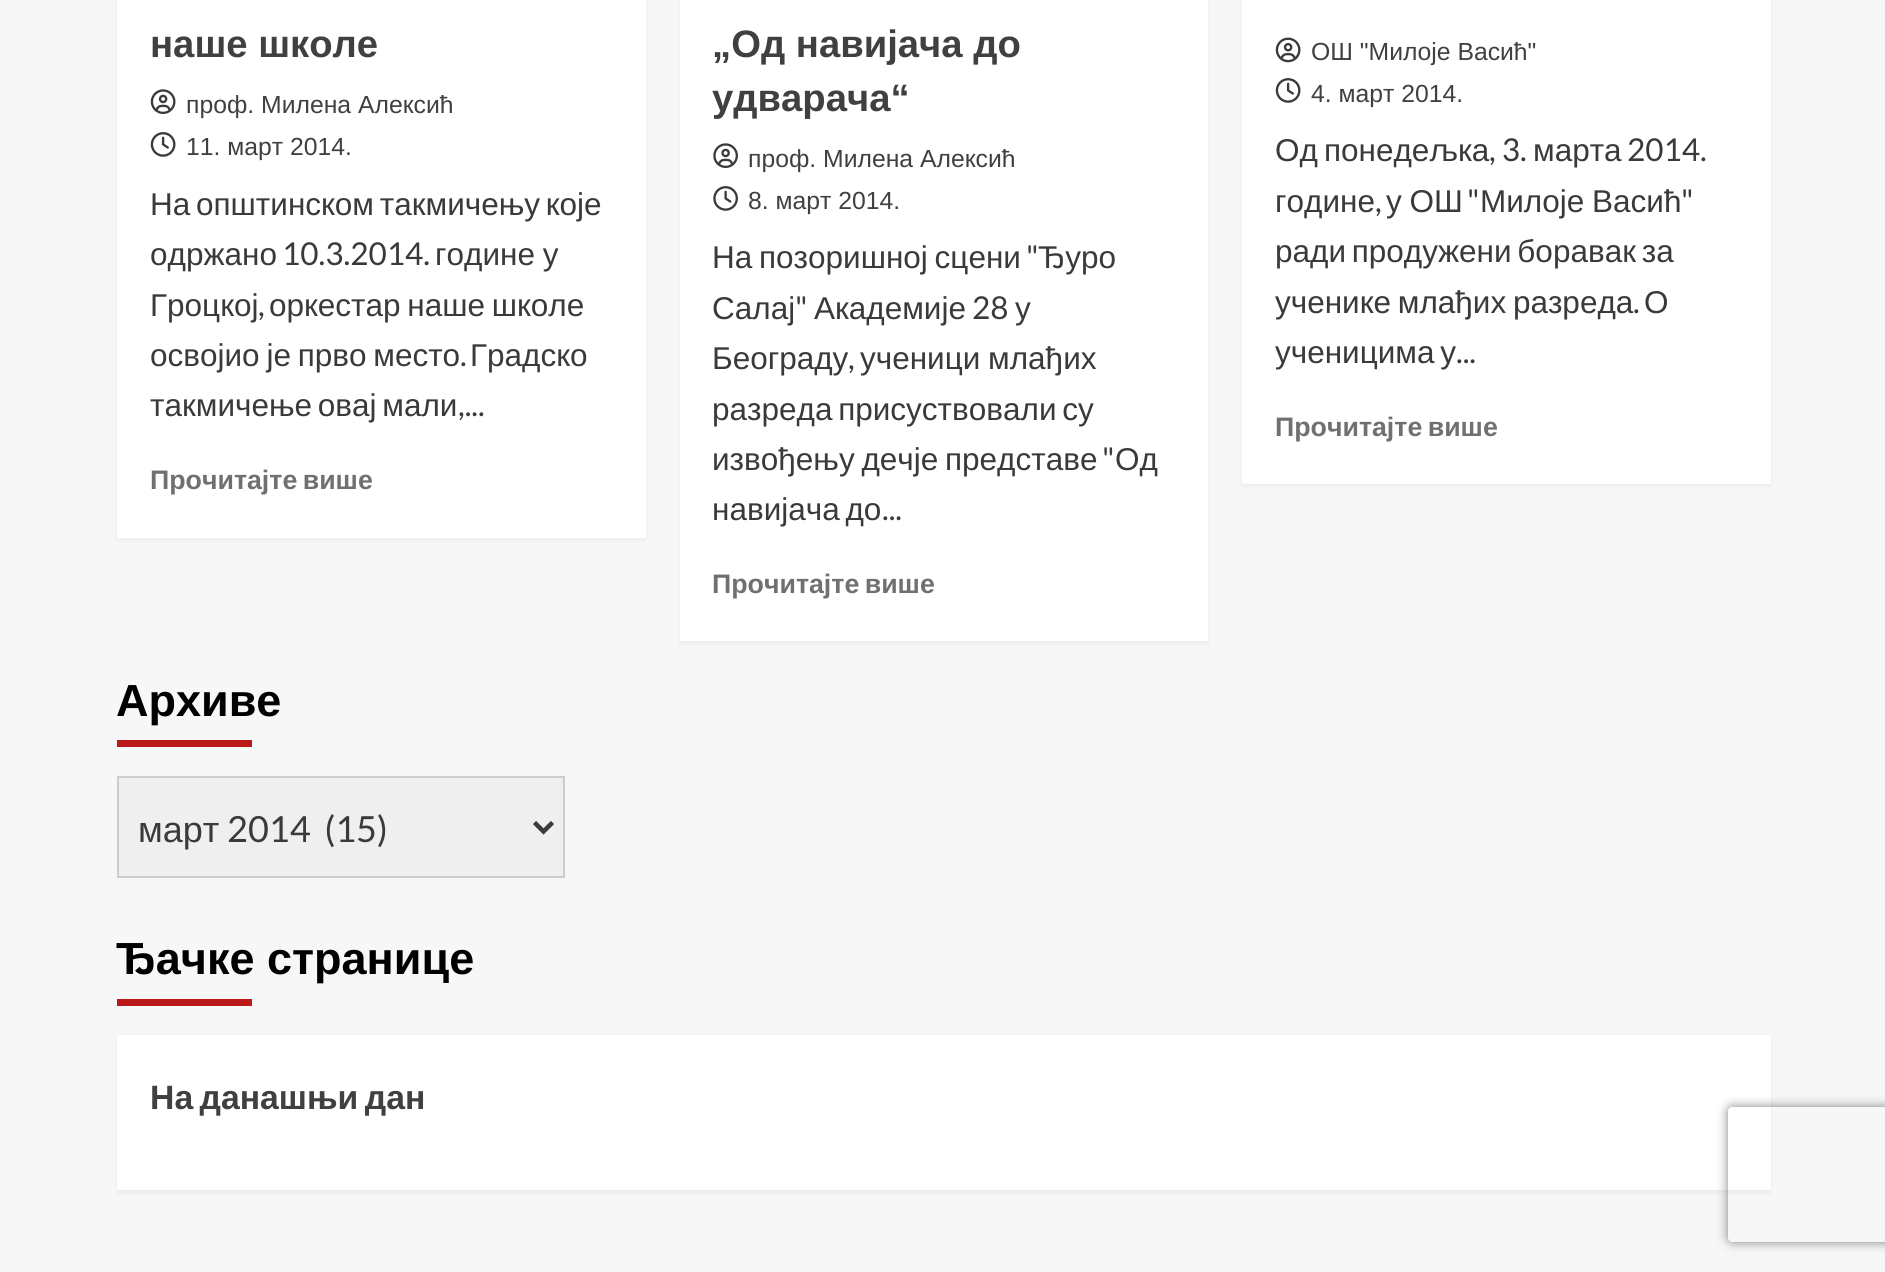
#include <cairo/cairo.h>
#include <math.h>
#include <stddef.h>


static void draw_spaced(cairo_t *cr, double x, double y, const char *s, double letter, double word) {
  cairo_move_to(cr, x, y);
  while (*s) {
    char ch[5] = {0};
    int n = 0;
    do ch[n++] = *s++; while ((*s & 0xC0) == 0x80);
    cairo_show_text(cr, ch);
    cairo_rel_move_to(cr, letter + word * (*ch == ' '), 0);
  }
}

static void rounded_rect(cairo_t *cr, double x, double y, double w, double h, double r) {
  cairo_new_sub_path(cr);
  cairo_arc(cr, x + w - r, y + h - r, r, 0, M_PI / 2);
  cairo_arc(cr, x + r, y + h - r, r, M_PI / 2, M_PI);
  cairo_arc(cr, x + r, y + r, r, M_PI, 1.5 * M_PI);
  cairo_arc(cr, x + w - r, y + r, r, 1.5 * M_PI, 2 * M_PI);
  cairo_close_path(cr);
}

static void draw_shadow(cairo_t *cr, double x, double y, double w, double h, double r, double blur, double alpha) {
  cairo_push_group_with_content(cr, CAIRO_CONTENT_ALPHA);
  cairo_set_operator(cr, CAIRO_OPERATOR_SOURCE);
  for (int i = 15; i >= -15 && fmin(w, h) + blur * i / 3 > 0; i -= 2) {
    double e = blur * i / 6;
    cairo_set_source_rgba(cr, 0, 0, 0, alpha * erfc((i - 1) / 8.5) / 2);
    rounded_rect(cr, x - e, y - e, w + 2 * e, h + 2 * e, fmax(0, fmin(r + e + blur * .6, fmin(w, h) / 2 + e)));
    cairo_fill(cr);
  }
  cairo_pattern_t *soft = cairo_pop_group(cr);
  cairo_mask(cr, soft);
  cairo_pattern_destroy(soft);
}

static void draw_image(cairo_t *cr, const char *path, double x, double y, double w, double h) {
  cairo_surface_t *image = cairo_image_surface_create_from_png(path);
  cairo_save(cr);
  cairo_set_source_surface(cr, image, x, y);
  cairo_rectangle(cr, x, y, w, h);
  cairo_fill(cr);
  cairo_restore(cr);
  cairo_surface_destroy(image);
}

static void draw(cairo_t *cr) {
  cairo_set_source_rgb(cr, 247 / 255.0, 247 / 255.0, 247 / 255.0);
  cairo_paint(cr);
  cairo_set_source_rgb(cr, 0, 0, 0);
  draw_shadow(cr, 117, -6, 529, 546, 0, 2, 0.05);
  cairo_set_source_rgb(cr, 1, 1, 1);
  cairo_rectangle(cr, 117, 0, 529, 538);
  cairo_fill(cr);
  draw_image(cr, "images/1.png", 150, 89, 26, 25);
  draw_image(cr, "images/2.png", 150, 132, 26, 25);
  cairo_set_source_rgb(cr, 0, 0, 0);
  draw_shadow(cr, 680, -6, 528, 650, 0, 2, 0.05);
  cairo_set_source_rgb(cr, 1, 1, 1);
  cairo_rectangle(cr, 680, 0, 528, 641);
  cairo_fill(cr);
  draw_image(cr, "images/3.png", 713, 143, 25, 25);
  draw_image(cr, "images/4.png", 713, 186, 25, 25);
  cairo_set_source_rgb(cr, 0, 0, 0);
  draw_shadow(cr, 1242, -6, 529, 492, 0, 2, 0.05);
  cairo_set_source_rgb(cr, 1, 1, 1);
  cairo_rectangle(cr, 1242, 0, 529, 484);
  cairo_fill(cr);
  draw_image(cr, "images/5.png", 1275, 37, 26, 26);
  draw_image(cr, "images/2.png", 1275, 78, 26, 25);
  cairo_set_source_rgb(cr, 187 / 255.0, 25 / 255.0, 25 / 255.0);
  cairo_rectangle(cr, 117, 740, 135, 7);
  cairo_fill(cr);
  cairo_set_source_rgb(cr, 239 / 255.0, 239 / 255.0, 239 / 255.0);
  cairo_rectangle(cr, 118, 777, 446, 100);
  cairo_fill_preserve(cr);
  cairo_set_source_rgb(cr, 204 / 255.0, 204 / 255.0, 204 / 255.0);
  cairo_stroke(cr);
  cairo_new_path(cr);
  cairo_move_to(cr, 534.5, 822.5);
  cairo_line_to(cr, 543.5, 831.5);
  cairo_line_to(cr, 552.5, 822.5);
  cairo_set_source_rgb(cr, 58 / 255.0, 58 / 255.0, 58 / 255.0);
  cairo_set_line_width(cr, 4.5);
  cairo_stroke(cr);
  cairo_set_source_rgb(cr, 187 / 255.0, 25 / 255.0, 25 / 255.0);
  cairo_rectangle(cr, 117, 999, 135, 7);
  cairo_fill(cr);
  cairo_set_source_rgb(cr, 0, 0, 0);
  draw_shadow(cr, 117, 1037, 1654, 156, 0, 2, 0.05);
  cairo_set_source_rgb(cr, 1, 1, 1);
  cairo_rectangle(cr, 117, 1035, 1654, 155);
  cairo_fill(cr);
  cairo_save(cr);
  cairo_set_fill_rule(cr, CAIRO_FILL_RULE_EVEN_ODD);
  cairo_new_path(cr);
  cairo_move_to(cr, 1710, 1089);
  cairo_line_to(cr, 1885, 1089);
  cairo_line_to(cr, 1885, 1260);
  cairo_line_to(cr, 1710, 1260);
  cairo_close_path(cr);
  cairo_move_to(cr, 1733, 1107);
  cairo_line_to(cr, 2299, 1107);
  cairo_curve_to(cr, 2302, 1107, 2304, 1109, 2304, 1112);
  cairo_line_to(cr, 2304, 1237);
  cairo_curve_to(cr, 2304, 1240, 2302, 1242, 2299, 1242);
  cairo_line_to(cr, 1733, 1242);
  cairo_curve_to(cr, 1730, 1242, 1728, 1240, 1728, 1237);
  cairo_line_to(cr, 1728, 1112);
  cairo_curve_to(cr, 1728, 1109, 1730, 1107, 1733, 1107);
  cairo_close_path(cr);
  cairo_clip(cr);
  cairo_set_source_rgb(cr, 128 / 255.0, 128 / 255.0, 128 / 255.0);
  draw_shadow(cr, 1728, 1107, 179, 135, 5, 5.5, 1);
  cairo_restore(cr);
  cairo_select_font_face(cr, "Liberation Sans", CAIRO_FONT_SLANT_NORMAL, CAIRO_FONT_WEIGHT_BOLD);
  cairo_set_font_size(cr, 38.25);
  cairo_set_source_rgb(cr, 64 / 255.0, 64 / 255.0, 64 / 255.0);
  cairo_move_to(cr, 150, 57);
  cairo_show_text(cr, "наше школе");
  cairo_select_font_face(cr, "Liberation Sans", CAIRO_FONT_SLANT_NORMAL, CAIRO_FONT_WEIGHT_NORMAL);
  cairo_set_font_size(cr, 24.75);
  cairo_move_to(cr, 186, 113);
  cairo_show_text(cr, "проф. Милена Алексић");
  cairo_move_to(cr, 186, 155);
  cairo_show_text(cr, "11. март 2014.");
  cairo_set_font_size(cr, 31.5);
  cairo_set_source_rgb(cr, 58 / 255.0, 58 / 255.0, 58 / 255.0);
  draw_spaced(cr, 150, 215, "На општинском такмичењу које", 0, -3);
  cairo_move_to(cr, 150, 265);
  cairo_show_text(cr, "одржано");
  cairo_select_font_face(cr, "Lato", CAIRO_FONT_SLANT_NORMAL, CAIRO_FONT_WEIGHT_NORMAL);
  cairo_move_to(cr, 282, 265);
  cairo_show_text(cr, "10.3.2014.");
  cairo_select_font_face(cr, "Liberation Sans", CAIRO_FONT_SLANT_NORMAL, CAIRO_FONT_WEIGHT_NORMAL);
  draw_spaced(cr, 435, 265, "године у", 0, -1);
  cairo_move_to(cr, 150, 316);
  cairo_show_text(cr, "Гроцкој");
  cairo_select_font_face(cr, "Lato", CAIRO_FONT_SLANT_NORMAL, CAIRO_FONT_WEIGHT_NORMAL);
  cairo_move_to(cr, 258, 316);
  cairo_show_text(cr, ",");
  cairo_select_font_face(cr, "Liberation Sans", CAIRO_FONT_SLANT_NORMAL, CAIRO_FONT_WEIGHT_NORMAL);
  draw_spaced(cr, 269, 316, "оркестар наше школе", 0, -2);
  draw_spaced(cr, 150, 366, "освојио је прво место", 0, -2);
  cairo_select_font_face(cr, "Lato", CAIRO_FONT_SLANT_NORMAL, CAIRO_FONT_WEIGHT_NORMAL);
  cairo_move_to(cr, 460, 366);
  cairo_show_text(cr, ".");
  cairo_select_font_face(cr, "Liberation Sans", CAIRO_FONT_SLANT_NORMAL, CAIRO_FONT_WEIGHT_NORMAL);
  cairo_move_to(cr, 470, 366);
  cairo_show_text(cr, "Градско");
  draw_spaced(cr, 150, 416, "такмичење овај мали", 0, -3);
  cairo_select_font_face(cr, "Lato", CAIRO_FONT_SLANT_NORMAL, CAIRO_FONT_WEIGHT_NORMAL);
  cairo_move_to(cr, 458, 416);
  cairo_show_text(cr, ",...");
  cairo_select_font_face(cr, "Liberation Sans", CAIRO_FONT_SLANT_NORMAL, CAIRO_FONT_WEIGHT_BOLD);
  cairo_set_font_size(cr, 26.75);
  cairo_set_source_rgb(cr, 112 / 255.0, 112 / 255.0, 112 / 255.0);
  draw_spaced(cr, 150, 489, "Прочитајте више", 0, -2);
  cairo_set_font_size(cr, 38.25);
  cairo_set_source_rgb(cr, 64 / 255.0, 64 / 255.0, 64 / 255.0);
  cairo_move_to(cr, 712, 57);
  cairo_show_text(cr, "„Од навијача до");
  cairo_move_to(cr, 712, 111);
  cairo_show_text(cr, "удварача“");
  cairo_select_font_face(cr, "Liberation Sans", CAIRO_FONT_SLANT_NORMAL, CAIRO_FONT_WEIGHT_NORMAL);
  cairo_set_font_size(cr, 24.75);
  cairo_move_to(cr, 748, 167);
  cairo_show_text(cr, "проф. Милена Алексић");
  cairo_move_to(cr, 748, 209);
  cairo_show_text(cr, "8. март 2014.");
  cairo_set_font_size(cr, 31.5);
  cairo_set_source_rgb(cr, 58 / 255.0, 58 / 255.0, 58 / 255.0);
  draw_spaced(cr, 712, 268, "На позоришној сцени", 0, -2);
  cairo_select_font_face(cr, "Lato", CAIRO_FONT_SLANT_NORMAL, CAIRO_FONT_WEIGHT_NORMAL);
  cairo_move_to(cr, 1026, 268);
  cairo_show_text(cr, "\"");
  cairo_select_font_face(cr, "Liberation Sans", CAIRO_FONT_SLANT_NORMAL, CAIRO_FONT_WEIGHT_NORMAL);
  cairo_move_to(cr, 1038, 268);
  cairo_show_text(cr, "Ђуро");
  cairo_move_to(cr, 712, 319);
  cairo_show_text(cr, "Салај");
  cairo_select_font_face(cr, "Lato", CAIRO_FONT_SLANT_NORMAL, CAIRO_FONT_WEIGHT_NORMAL);
  cairo_move_to(cr, 795, 319);
  cairo_show_text(cr, "\"");
  cairo_select_font_face(cr, "Liberation Sans", CAIRO_FONT_SLANT_NORMAL, CAIRO_FONT_WEIGHT_NORMAL);
  cairo_move_to(cr, 814, 319);
  cairo_show_text(cr, "Академије");
  cairo_select_font_face(cr, "Lato", CAIRO_FONT_SLANT_NORMAL, CAIRO_FONT_WEIGHT_NORMAL);
  cairo_move_to(cr, 972, 319);
  cairo_show_text(cr, "28");
  cairo_select_font_face(cr, "Liberation Sans", CAIRO_FONT_SLANT_NORMAL, CAIRO_FONT_WEIGHT_NORMAL);
  cairo_move_to(cr, 1015, 319);
  cairo_show_text(cr, "у");
  cairo_move_to(cr, 712, 369);
  cairo_show_text(cr, "Београду");
  cairo_select_font_face(cr, "Lato", CAIRO_FONT_SLANT_NORMAL, CAIRO_FONT_WEIGHT_NORMAL);
  cairo_move_to(cr, 848, 369);
  cairo_show_text(cr, ",");
  cairo_select_font_face(cr, "Liberation Sans", CAIRO_FONT_SLANT_NORMAL, CAIRO_FONT_WEIGHT_NORMAL);
  draw_spaced(cr, 860, 369, "ученици млађих", 0, -1);
  draw_spaced(cr, 712, 420, "разреда присуствовали су", 0, -3);
  draw_spaced(cr, 712, 470, "извођењу дечје представе", 0, -2);
  cairo_select_font_face(cr, "Lato", CAIRO_FONT_SLANT_NORMAL, CAIRO_FONT_WEIGHT_NORMAL);
  cairo_move_to(cr, 1102, 470);
  cairo_show_text(cr, "\"");
  cairo_select_font_face(cr, "Liberation Sans", CAIRO_FONT_SLANT_NORMAL, CAIRO_FONT_WEIGHT_NORMAL);
  cairo_move_to(cr, 1115, 470);
  cairo_show_text(cr, "Од");
  draw_spaced(cr, 712, 520, "навијача до", 0, -3);
  cairo_select_font_face(cr, "Lato", CAIRO_FONT_SLANT_NORMAL, CAIRO_FONT_WEIGHT_NORMAL);
  cairo_move_to(cr, 882, 520);
  cairo_show_text(cr, "...");
  cairo_select_font_face(cr, "Liberation Sans", CAIRO_FONT_SLANT_NORMAL, CAIRO_FONT_WEIGHT_BOLD);
  cairo_set_font_size(cr, 26.75);
  cairo_set_source_rgb(cr, 112 / 255.0, 112 / 255.0, 112 / 255.0);
  draw_spaced(cr, 712, 593, "Прочитајте више", 0, -2);
  cairo_select_font_face(cr, "Liberation Sans", CAIRO_FONT_SLANT_NORMAL, CAIRO_FONT_WEIGHT_NORMAL);
  cairo_set_font_size(cr, 24.75);
  cairo_set_source_rgb(cr, 64 / 255.0, 64 / 255.0, 64 / 255.0);
  cairo_move_to(cr, 1311, 60);
  cairo_show_text(cr, "ОШ \"Милоје Васић\"");
  cairo_move_to(cr, 1311, 102);
  cairo_show_text(cr, "4. март 2014.");
  cairo_set_font_size(cr, 31.5);
  cairo_set_source_rgb(cr, 58 / 255.0, 58 / 255.0, 58 / 255.0);
  cairo_move_to(cr, 1275, 161);
  cairo_show_text(cr, "Од");
  cairo_move_to(cr, 1324, 161);
  cairo_show_text(cr, "понедељка");
  cairo_select_font_face(cr, "Lato", CAIRO_FONT_SLANT_NORMAL, CAIRO_FONT_WEIGHT_NORMAL);
  cairo_move_to(cr, 1489, 161);
  cairo_show_text(cr, ", 3.");
  cairo_select_font_face(cr, "Liberation Sans", CAIRO_FONT_SLANT_NORMAL, CAIRO_FONT_WEIGHT_NORMAL);
  cairo_move_to(cr, 1533, 161);
  cairo_show_text(cr, "марта");
  cairo_select_font_face(cr, "Lato", CAIRO_FONT_SLANT_NORMAL, CAIRO_FONT_WEIGHT_NORMAL);
  cairo_move_to(cr, 1627, 161);
  cairo_show_text(cr, "2014.");
  cairo_select_font_face(cr, "Liberation Sans", CAIRO_FONT_SLANT_NORMAL, CAIRO_FONT_WEIGHT_NORMAL);
  cairo_move_to(cr, 1275, 212);
  cairo_show_text(cr, "године");
  cairo_select_font_face(cr, "Lato", CAIRO_FONT_SLANT_NORMAL, CAIRO_FONT_WEIGHT_NORMAL);
  cairo_move_to(cr, 1375, 212);
  cairo_show_text(cr, ",");
  cairo_select_font_face(cr, "Liberation Sans", CAIRO_FONT_SLANT_NORMAL, CAIRO_FONT_WEIGHT_NORMAL);
  draw_spaced(cr, 1386, 212, "у ОШ", 0, -1);
  cairo_select_font_face(cr, "Lato", CAIRO_FONT_SLANT_NORMAL, CAIRO_FONT_WEIGHT_NORMAL);
  cairo_move_to(cr, 1467, 212);
  cairo_show_text(cr, "\"");
  cairo_select_font_face(cr, "Liberation Sans", CAIRO_FONT_SLANT_NORMAL, CAIRO_FONT_WEIGHT_NORMAL);
  draw_spaced(cr, 1480, 212, "Милоје Васић", 0, -1);
  cairo_select_font_face(cr, "Lato", CAIRO_FONT_SLANT_NORMAL, CAIRO_FONT_WEIGHT_NORMAL);
  cairo_move_to(cr, 1681, 212);
  cairo_show_text(cr, "\"");
  cairo_select_font_face(cr, "Liberation Sans", CAIRO_FONT_SLANT_NORMAL, CAIRO_FONT_WEIGHT_NORMAL);
  draw_spaced(cr, 1275, 262, "ради продужени боравак за", 0, -3);
  draw_spaced(cr, 1275, 313, "ученике млађих разреда", 0, -2);
  cairo_select_font_face(cr, "Lato", CAIRO_FONT_SLANT_NORMAL, CAIRO_FONT_WEIGHT_NORMAL);
  cairo_move_to(cr, 1633, 313);
  cairo_show_text(cr, ".");
  cairo_select_font_face(cr, "Liberation Sans", CAIRO_FONT_SLANT_NORMAL, CAIRO_FONT_WEIGHT_NORMAL);
  cairo_move_to(cr, 1644, 313);
  cairo_show_text(cr, "О");
  draw_spaced(cr, 1275, 363, "ученицима у", 0, -3);
  cairo_select_font_face(cr, "Lato", CAIRO_FONT_SLANT_NORMAL, CAIRO_FONT_WEIGHT_NORMAL);
  cairo_move_to(cr, 1456, 363);
  cairo_show_text(cr, "...");
  cairo_select_font_face(cr, "Liberation Sans", CAIRO_FONT_SLANT_NORMAL, CAIRO_FONT_WEIGHT_BOLD);
  cairo_set_font_size(cr, 26.75);
  cairo_set_source_rgb(cr, 112 / 255.0, 112 / 255.0, 112 / 255.0);
  draw_spaced(cr, 1275, 436, "Прочитајте више", 0, -2);
  cairo_set_font_size(cr, 45);
  cairo_set_source_rgb(cr, 0, 0, 0);
  cairo_move_to(cr, 116, 716);
  cairo_show_text(cr, "Архиве");
  cairo_select_font_face(cr, "Liberation Sans", CAIRO_FONT_SLANT_NORMAL, CAIRO_FONT_WEIGHT_NORMAL);
  cairo_set_font_size(cr, 36);
  cairo_set_source_rgb(cr, 58 / 255.0, 58 / 255.0, 58 / 255.0);
  cairo_move_to(cr, 138, 842);
  cairo_show_text(cr, "март");
  cairo_select_font_face(cr, "Lato", CAIRO_FONT_SLANT_NORMAL, CAIRO_FONT_WEIGHT_NORMAL);
  cairo_move_to(cr, 227, 842);
  cairo_show_text(cr, "2014  (15)");
  cairo_select_font_face(cr, "Liberation Sans", CAIRO_FONT_SLANT_NORMAL, CAIRO_FONT_WEIGHT_BOLD);
  cairo_set_font_size(cr, 45);
  cairo_set_source_rgb(cr, 0, 0, 0);
  cairo_move_to(cr, 116, 974);
  cairo_show_text(cr, "Ђачке странице");
  cairo_set_font_size(cr, 33.75);
  cairo_set_source_rgb(cr, 64 / 255.0, 64 / 255.0, 64 / 255.0);
  draw_spaced(cr, 150, 1109, "На данашњи дан", 0, -3);
}

int main(void) {
  cairo_surface_t *surface = cairo_image_surface_create(CAIRO_FORMAT_RGB24, 1885, 1272);
  cairo_t *cr = cairo_create(surface);
  cairo_font_options_t *options = cairo_font_options_create();
  cairo_font_options_set_hint_metrics(options, CAIRO_HINT_METRICS_OFF);
  cairo_font_options_set_hint_style(options, CAIRO_HINT_STYLE_NONE);
  cairo_set_font_options(cr, options);
  cairo_set_miter_limit(cr, 4);
  draw(cr);
  cairo_surface_write_to_png(surface, "out.png");
  cairo_font_options_destroy(options);
  cairo_destroy(cr);
  cairo_surface_destroy(surface);
  return 0;
}
